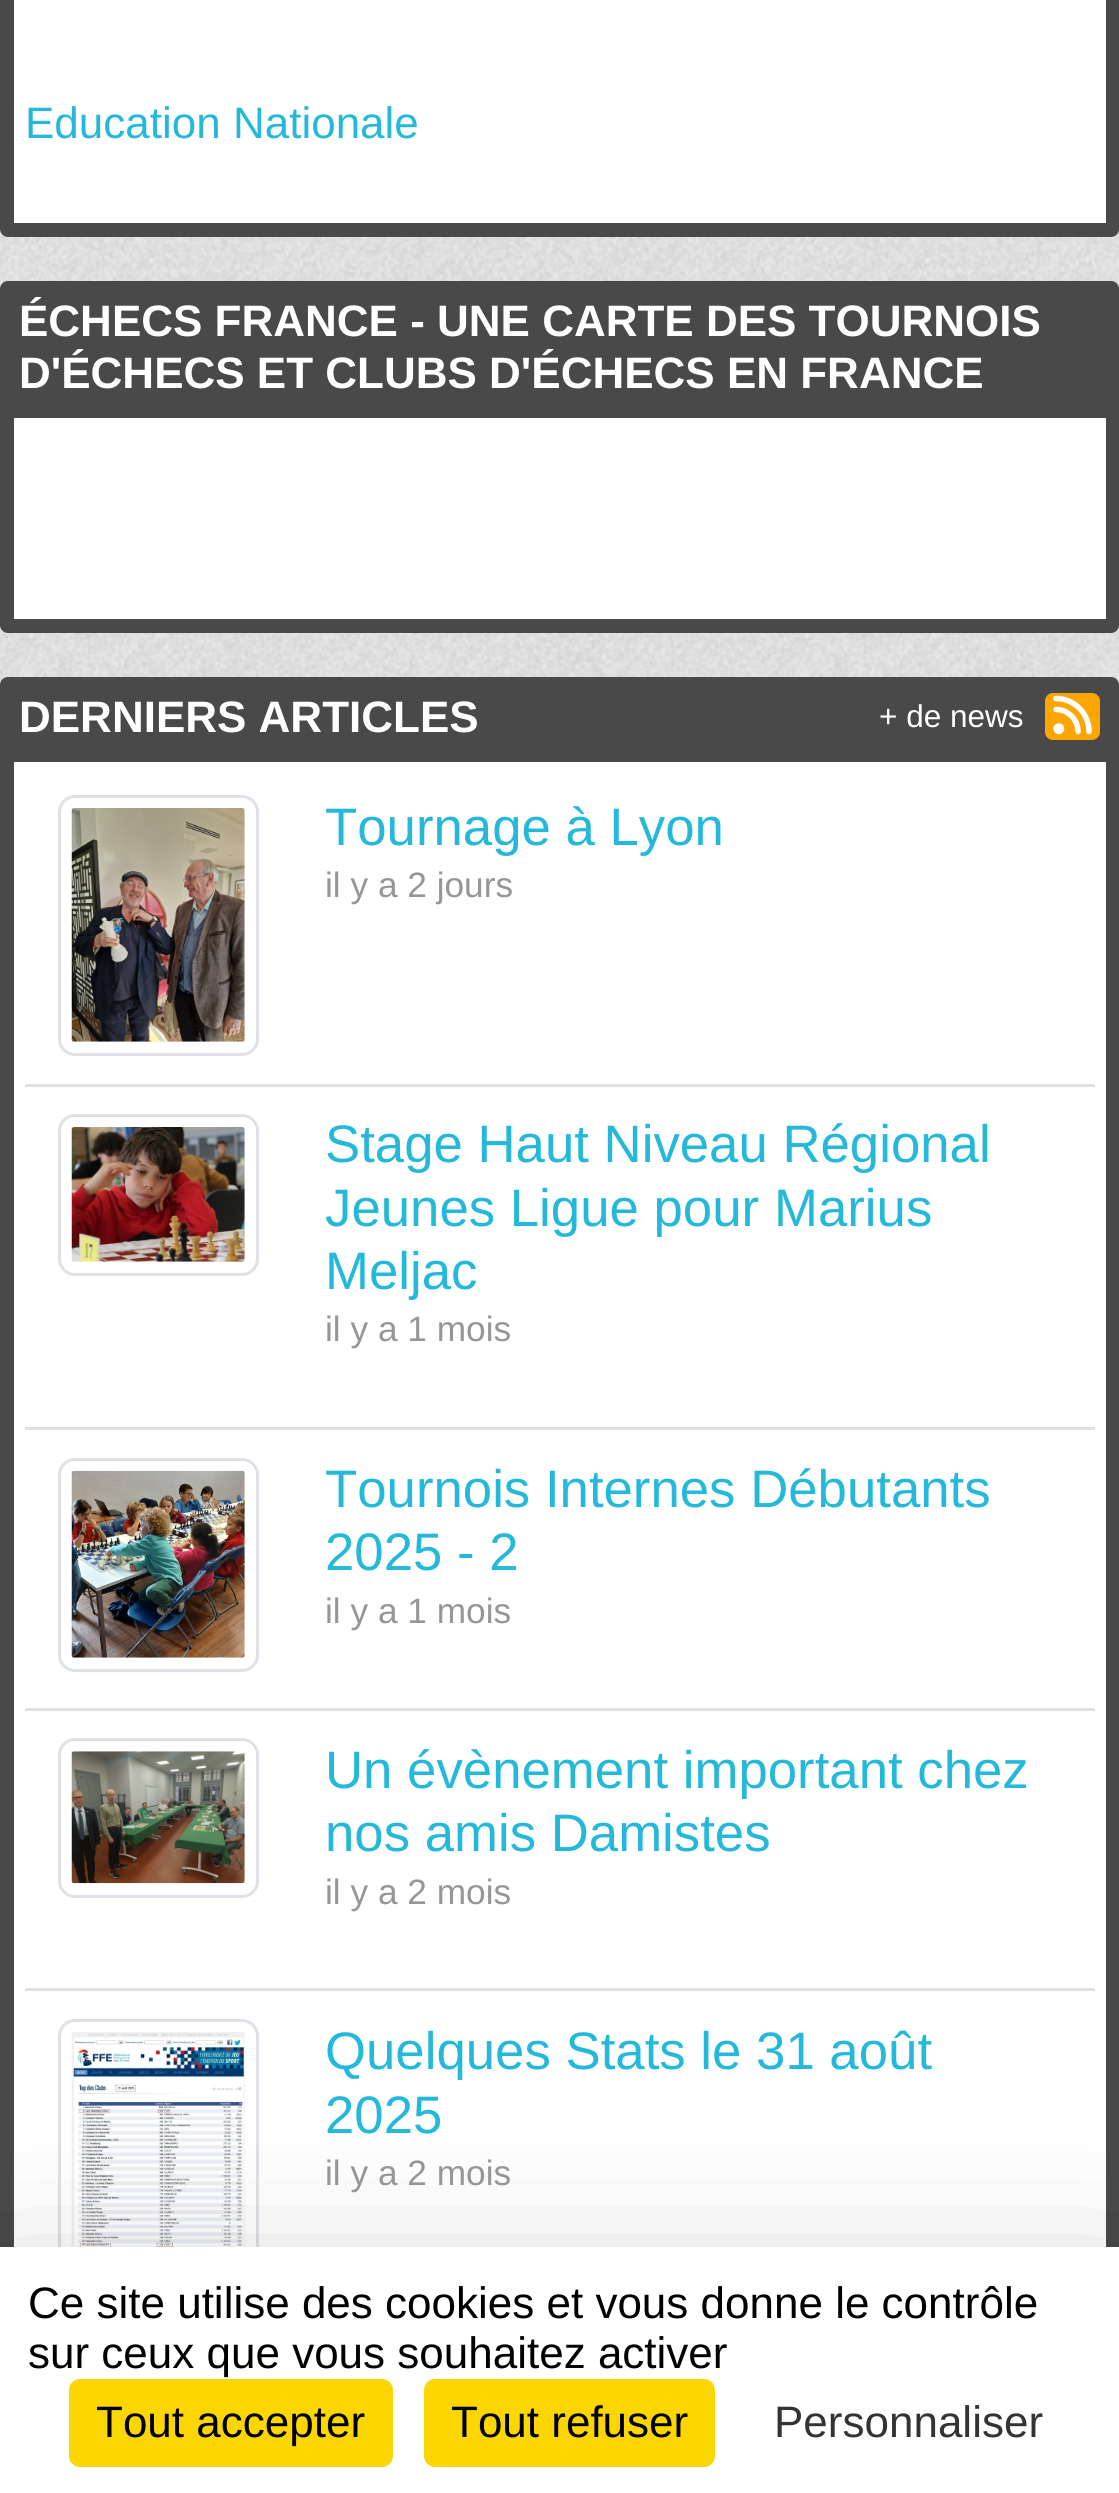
#include <cairo/cairo.h>
#include <math.h>
#include <stddef.h>


static void rounded_rect(cairo_t *cr, double x, double y, double w, double h, double r) {
  cairo_new_sub_path(cr);
  cairo_arc(cr, x + w - r, y + h - r, r, 0, M_PI / 2);
  cairo_arc(cr, x + r, y + h - r, r, M_PI / 2, M_PI);
  cairo_arc(cr, x + r, y + r, r, M_PI, 1.5 * M_PI);
  cairo_arc(cr, x + w - r, y + r, r, 1.5 * M_PI, 2 * M_PI);
  cairo_close_path(cr);
}

static void draw_shadow(cairo_t *cr, double x, double y, double w, double h, double r, double blur, double alpha) {
  cairo_push_group_with_content(cr, CAIRO_CONTENT_ALPHA);
  cairo_set_operator(cr, CAIRO_OPERATOR_SOURCE);
  for (int i = 15; i >= -15 && fmin(w, h) + blur * i / 3 > 0; i -= 2) {
    double e = blur * i / 6;
    cairo_set_source_rgba(cr, 0, 0, 0, alpha * erfc((i - 1) / 8.5) / 2);
    rounded_rect(cr, x - e, y - e, w + 2 * e, h + 2 * e, fmax(0, fmin(r + e + blur * .6, fmin(w, h) / 2 + e)));
    cairo_fill(cr);
  }
  cairo_pattern_t *soft = cairo_pop_group(cr);
  cairo_mask(cr, soft);
  cairo_pattern_destroy(soft);
}

static void draw_image(cairo_t *cr, const char *path, double x, double y, double w, double h) {
  cairo_surface_t *image = cairo_image_surface_create_from_png(path);
  cairo_save(cr);
  cairo_set_source_surface(cr, image, x, y);
  cairo_rectangle(cr, x, y, w, h);
  cairo_fill(cr);
  cairo_restore(cr);
  cairo_surface_destroy(image);
}

static void draw(cairo_t *cr) {
  cairo_set_source_rgb(cr, 1, 1, 1);
  cairo_paint(cr);
  draw_image(cr, "images/1.png", 0, 229, 1119, 456);
  cairo_set_source_rgb(cr, 73 / 255.0, 73 / 255.0, 73 / 255.0);
  rounded_rect(cr, 0, -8, 1119, 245, 8);
  cairo_fill(cr);
  cairo_set_source_rgb(cr, 1, 1, 1);
  cairo_rectangle(cr, 14, 0, 1092, 223);
  cairo_fill(cr);
  cairo_set_source_rgb(cr, 73 / 255.0, 73 / 255.0, 73 / 255.0);
  rounded_rect(cr, 0, 281, 1119, 352, 8);
  cairo_fill(cr);
  cairo_set_source_rgb(cr, 1, 1, 1);
  cairo_rectangle(cr, 14, 418, 1092, 201);
  cairo_fill(cr);
  cairo_set_source_rgb(cr, 73 / 255.0, 73 / 255.0, 73 / 255.0);
  rounded_rect(cr, 0, 677, 1119, 1650, 8);
  cairo_fill(cr);
  cairo_set_source_rgb(cr, 1, 1, 1);
  cairo_rectangle(cr, 14, 762, 1092, 1485);
  cairo_fill(cr);
  cairo_set_source_rgb(cr, 225 / 255.0, 225 / 255.0, 225 / 255.0);
  cairo_rectangle(cr, 25, 1084, 1070, 3);
  cairo_fill(cr);
  rounded_rect(cr, 59.5, 796.5, 198, 258, 15.5);
  cairo_set_source_rgb(cr, 222 / 255.0, 226 / 255.0, 230 / 255.0);
  cairo_set_line_width(cr, 3);
  cairo_stroke(cr);
  draw_image(cr, "images/2.png", 71, 808, 174, 234);
  cairo_set_source_rgb(cr, 225 / 255.0, 225 / 255.0, 225 / 255.0);
  cairo_rectangle(cr, 25, 1427, 1070, 3);
  cairo_fill(cr);
  rounded_rect(cr, 59.5, 1115.5, 198, 159, 15.5);
  cairo_set_source_rgb(cr, 222 / 255.0, 226 / 255.0, 230 / 255.0);
  cairo_stroke(cr);
  draw_image(cr, "images/3.png", 71, 1127, 174, 135);
  cairo_set_source_rgb(cr, 225 / 255.0, 225 / 255.0, 225 / 255.0);
  cairo_rectangle(cr, 25, 1708, 1070, 3);
  cairo_fill(cr);
  rounded_rect(cr, 59.5, 1459.5, 198, 211, 15.5);
  cairo_set_source_rgb(cr, 222 / 255.0, 226 / 255.0, 230 / 255.0);
  cairo_stroke(cr);
  draw_image(cr, "images/4.png", 71, 1470, 174, 188);
  cairo_set_source_rgb(cr, 225 / 255.0, 225 / 255.0, 225 / 255.0);
  cairo_rectangle(cr, 25, 1988, 1070, 3);
  cairo_fill(cr);
  rounded_rect(cr, 59.5, 1739.5, 198, 157, 15.5);
  cairo_set_source_rgb(cr, 222 / 255.0, 226 / 255.0, 230 / 255.0);
  cairo_stroke(cr);
  draw_image(cr, "images/5.png", 71, 1751, 174, 133);
  rounded_rect(cr, 59.5, 2020.5, 198, 258, 15.5);
  cairo_stroke(cr);
  draw_image(cr, "images/6.png", 71, 2032, 174, 215);
  cairo_set_source_rgb(cr, 1, 165 / 255.0, 0);
  rounded_rect(cr, 1045, 693, 55, 47, 8);
  cairo_fill(cr);
  draw_image(cr, "images/7.png", 1053, 695, 39, 40);
  cairo_set_source_rgb(cr, 0, 0, 0);
  draw_shadow(cr, 0, 2302, 1119, 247, 0, 82.5, 0.25);
  cairo_set_source_rgb(cr, 1, 1, 1);
  cairo_rectangle(cr, 0, 2247, 1119, 246);
  cairo_fill(cr);
  cairo_set_source_rgb(cr, 251 / 255.0, 214 / 255.0, 0);
  rounded_rect(cr, 69, 2379, 324, 88, 11);
  cairo_fill(cr);
  rounded_rect(cr, 424, 2379, 291, 88, 11);
  cairo_fill(cr);
  cairo_select_font_face(cr, "Liberation Sans", CAIRO_FONT_SLANT_NORMAL, CAIRO_FONT_WEIGHT_NORMAL);
  cairo_set_font_size(cr, 44);
  cairo_set_source_rgb(cr, 36 / 255.0, 185 / 255.0, 218 / 255.0);
  cairo_move_to(cr, 25, 138);
  cairo_show_text(cr, "Education Nationale");
  cairo_select_font_face(cr, "Liberation Sans", CAIRO_FONT_SLANT_NORMAL, CAIRO_FONT_WEIGHT_BOLD);
  cairo_set_source_rgb(cr, 1, 1, 1);
  cairo_move_to(cr, 19, 336);
  cairo_show_text(cr, "ÉCHECS FRANCE - UNE CARTE DES TOURNOIS");
  cairo_move_to(cr, 19, 388);
  cairo_show_text(cr, "D'ÉCHECS ET CLUBS D'ÉCHECS EN FRANCE");
  cairo_move_to(cr, 19, 732);
  cairo_show_text(cr, "DERNIERS ARTICLES");
  cairo_select_font_face(cr, "Liberation Sans", CAIRO_FONT_SLANT_NORMAL, CAIRO_FONT_WEIGHT_NORMAL);
  cairo_set_font_size(cr, 52.75);
  cairo_set_source_rgb(cr, 36 / 255.0, 185 / 255.0, 218 / 255.0);
  cairo_move_to(cr, 325, 845);
  cairo_show_text(cr, "Tournage à Lyon");
  cairo_set_font_size(cr, 35.25);
  cairo_set_source_rgb(cr, 150 / 255.0, 150 / 255.0, 150 / 255.0);
  cairo_move_to(cr, 325, 897);
  cairo_show_text(cr, "il y a 2 jours");
  cairo_set_font_size(cr, 52.75);
  cairo_set_source_rgb(cr, 36 / 255.0, 185 / 255.0, 218 / 255.0);
  cairo_move_to(cr, 325, 1162);
  cairo_show_text(cr, "Stage Haut Niveau Régional");
  cairo_move_to(cr, 325, 1226);
  cairo_show_text(cr, "Jeunes Ligue pour");
  cairo_move_to(cr, 774, 1226);
  cairo_show_text(cr, "Marius");
  cairo_move_to(cr, 325, 1289);
  cairo_show_text(cr, "Meljac");
  cairo_set_font_size(cr, 35.25);
  cairo_set_source_rgb(cr, 150 / 255.0, 150 / 255.0, 150 / 255.0);
  cairo_move_to(cr, 325, 1341);
  cairo_show_text(cr, "il y a 1 mois");
  cairo_set_font_size(cr, 52.75);
  cairo_set_source_rgb(cr, 36 / 255.0, 185 / 255.0, 218 / 255.0);
  cairo_move_to(cr, 325, 1507);
  cairo_show_text(cr, "Tournois Internes Débutants");
  cairo_move_to(cr, 325, 1570);
  cairo_show_text(cr, "2025 - 2");
  cairo_set_font_size(cr, 35.25);
  cairo_set_source_rgb(cr, 150 / 255.0, 150 / 255.0, 150 / 255.0);
  cairo_move_to(cr, 325, 1623);
  cairo_show_text(cr, "il y a 1 mois");
  cairo_set_font_size(cr, 52.75);
  cairo_set_source_rgb(cr, 36 / 255.0, 185 / 255.0, 218 / 255.0);
  cairo_move_to(cr, 325, 1788);
  cairo_show_text(cr, "Un évènement important chez");
  cairo_move_to(cr, 325, 1851);
  cairo_show_text(cr, "nos amis Damistes");
  cairo_set_font_size(cr, 35.25);
  cairo_set_source_rgb(cr, 150 / 255.0, 150 / 255.0, 150 / 255.0);
  cairo_move_to(cr, 325, 1904);
  cairo_show_text(cr, "il y a 2 mois");
  cairo_set_font_size(cr, 52.75);
  cairo_set_source_rgb(cr, 36 / 255.0, 185 / 255.0, 218 / 255.0);
  cairo_move_to(cr, 325, 2069);
  cairo_show_text(cr, "Quelques Stats le 31 août");
  cairo_move_to(cr, 325, 2133);
  cairo_show_text(cr, "2025");
  cairo_set_font_size(cr, 35.25);
  cairo_set_source_rgb(cr, 150 / 255.0, 150 / 255.0, 150 / 255.0);
  cairo_move_to(cr, 325, 2185);
  cairo_show_text(cr, "il y a 2 mois");
  cairo_set_font_size(cr, 31.5);
  cairo_set_source_rgb(cr, 1, 1, 1);
  cairo_move_to(cr, 879, 727);
  cairo_show_text(cr, "+ de news");
  cairo_set_font_size(cr, 44);
  cairo_set_source_rgb(cr, 0, 0, 0);
  cairo_move_to(cr, 28, 2318);
  cairo_show_text(cr, "Ce site utilise des cookies et vous donne le contrôle");
  cairo_move_to(cr, 28, 2368);
  cairo_show_text(cr, "sur ceux que vous souhaitez activer");
  cairo_move_to(cr, 96, 2437);
  cairo_show_text(cr, "Tout accepter");
  cairo_move_to(cr, 451, 2437);
  cairo_show_text(cr, "Tout refuser");
  cairo_set_source_rgb(cr, 51 / 255.0, 51 / 255.0, 51 / 255.0);
  cairo_move_to(cr, 774, 2437);
  cairo_show_text(cr, "Personnaliser");
}

int main(void) {
  cairo_surface_t *surface = cairo_image_surface_create(CAIRO_FORMAT_RGB24, 1119, 2493);
  cairo_t *cr = cairo_create(surface);
  cairo_font_options_t *options = cairo_font_options_create();
  cairo_font_options_set_hint_metrics(options, CAIRO_HINT_METRICS_OFF);
  cairo_font_options_set_hint_style(options, CAIRO_HINT_STYLE_NONE);
  cairo_set_font_options(cr, options);
  cairo_set_miter_limit(cr, 4);
  draw(cr);
  cairo_surface_write_to_png(surface, "out.png");
  cairo_font_options_destroy(options);
  cairo_destroy(cr);
  cairo_surface_destroy(surface);
  return 0;
}
